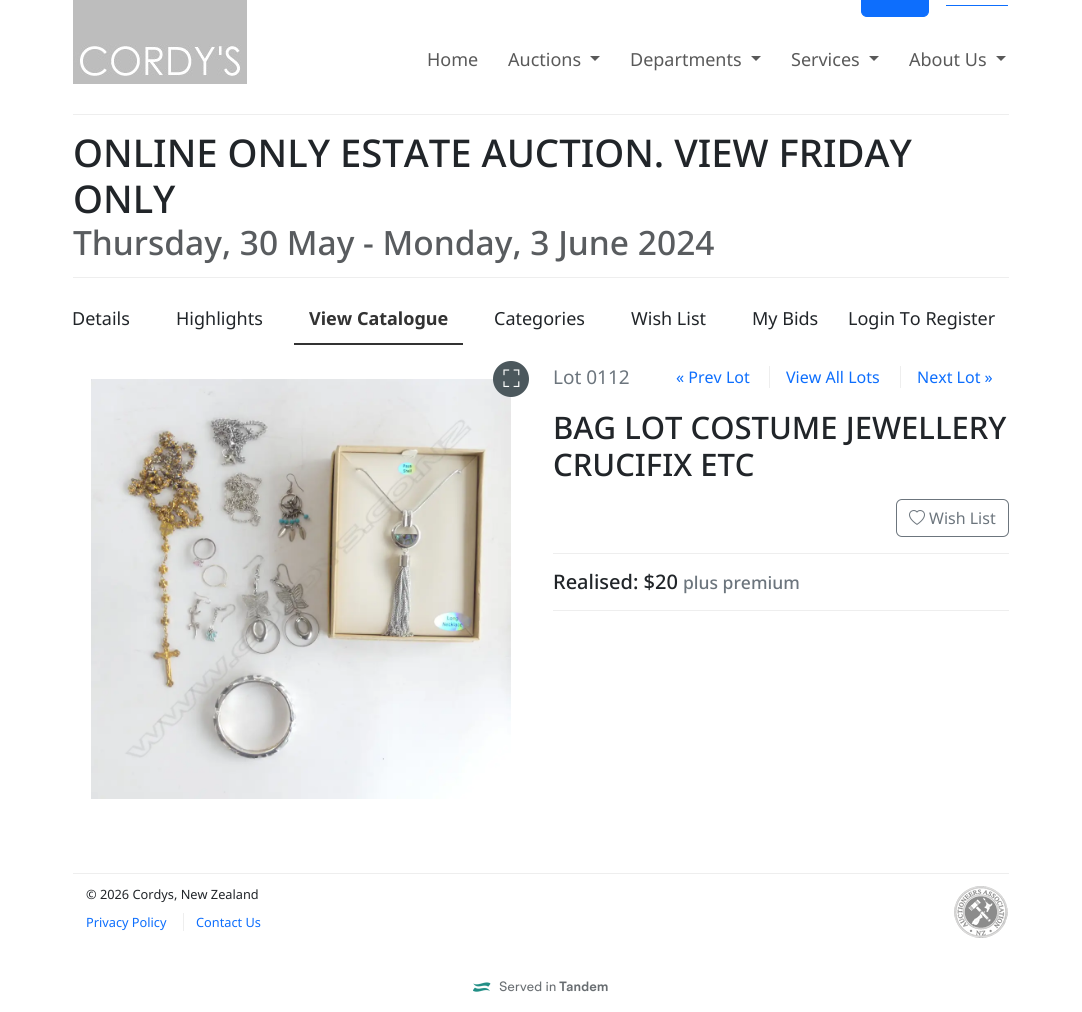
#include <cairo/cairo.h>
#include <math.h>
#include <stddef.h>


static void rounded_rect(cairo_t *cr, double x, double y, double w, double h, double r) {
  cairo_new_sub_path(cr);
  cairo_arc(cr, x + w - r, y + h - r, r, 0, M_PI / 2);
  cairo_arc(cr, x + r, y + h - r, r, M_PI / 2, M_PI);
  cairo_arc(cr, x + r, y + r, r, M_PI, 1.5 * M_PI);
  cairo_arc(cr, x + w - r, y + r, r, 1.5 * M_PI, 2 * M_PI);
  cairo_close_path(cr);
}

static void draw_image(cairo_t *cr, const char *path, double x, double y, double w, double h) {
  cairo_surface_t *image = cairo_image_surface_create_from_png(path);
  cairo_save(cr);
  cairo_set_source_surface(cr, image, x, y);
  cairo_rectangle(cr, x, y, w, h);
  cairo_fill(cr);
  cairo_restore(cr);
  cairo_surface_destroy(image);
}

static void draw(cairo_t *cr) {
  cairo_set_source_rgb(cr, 1, 1, 1);
  cairo_paint(cr);
  draw_image(cr, "images/1.png", 73, 0, 174, 84);
  cairo_set_source_rgb(cr, 13 / 255.0, 110 / 255.0, 253 / 255.0);
  rounded_rect(cr, 861.5, -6.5, 67, 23, 5.5);
  cairo_fill_preserve(cr);
  cairo_set_line_width(cr, 1);
  cairo_stroke(cr);
  cairo_rectangle(cr, 946, 5, 62, 1);
  cairo_fill(cr);
  cairo_set_source_rgb(cr, 89 / 255.0, 89 / 255.0, 89 / 255.0);
  cairo_new_path(cr);
  cairo_move_to(cr, 590, 56);
  cairo_line_to(cr, 600, 56);
  cairo_line_to(cr, 595, 61);
  cairo_close_path(cr);
  cairo_fill(cr);
  cairo_new_path(cr);
  cairo_move_to(cr, 751, 56);
  cairo_line_to(cr, 761, 56);
  cairo_line_to(cr, 756, 61);
  cairo_close_path(cr);
  cairo_fill(cr);
  cairo_new_path(cr);
  cairo_move_to(cr, 869, 56);
  cairo_line_to(cr, 879, 56);
  cairo_line_to(cr, 874, 61);
  cairo_close_path(cr);
  cairo_fill(cr);
  cairo_new_path(cr);
  cairo_move_to(cr, 996, 56);
  cairo_line_to(cr, 1006, 56);
  cairo_line_to(cr, 1001, 61);
  cairo_close_path(cr);
  cairo_fill(cr);
  cairo_set_source_rgb(cr, 238 / 255.0, 238 / 255.0, 238 / 255.0);
  cairo_rectangle(cr, 73, 114, 936, 1);
  cairo_fill(cr);
  cairo_rectangle(cr, 73, 277, 936, 1);
  cairo_fill(cr);
  cairo_set_source_rgb(cr, 51 / 255.0, 51 / 255.0, 51 / 255.0);
  cairo_rectangle(cr, 294, 343, 169, 2);
  cairo_fill(cr);
  draw_image(cr, "images/2.png", 91, 379, 420, 420);
  cairo_set_source_rgb(cr, 76 / 255.0, 88 / 255.0, 93 / 255.0);
  cairo_arc(cr, 511, 379, 18, 0, 2 * M_PI);
  cairo_fill(cr);
  cairo_set_source_rgb(cr, 238 / 255.0, 238 / 255.0, 238 / 255.0);
  cairo_rectangle(cr, 769, 366, 1, 22);
  cairo_fill(cr);
  cairo_rectangle(cr, 900, 366, 1, 22);
  cairo_fill(cr);
  rounded_rect(cr, 896.5, 499.5, 112, 37, 5.5);
  cairo_set_source_rgb(cr, 108 / 255.0, 117 / 255.0, 125 / 255.0);
  cairo_stroke(cr);
  draw_image(cr, "images/3.png", 909, 510, 16, 15);
  cairo_set_source_rgb(cr, 238 / 255.0, 238 / 255.0, 238 / 255.0);
  cairo_rectangle(cr, 553, 553, 456, 1);
  cairo_fill(cr);
  cairo_rectangle(cr, 553, 610, 456, 1);
  cairo_fill(cr);
  cairo_rectangle(cr, 73, 873, 936, 1);
  cairo_fill(cr);
  draw_image(cr, "images/4.png", 954, 886, 54, 52);
  cairo_rectangle(cr, 183, 913, 1, 18);
  cairo_fill(cr);
  draw_image(cr, "images/5.png", 473, 981, 135, 11);
  cairo_select_font_face(cr, "Noto Sans", CAIRO_FONT_SLANT_NORMAL, CAIRO_FONT_WEIGHT_NORMAL);
  cairo_set_font_size(cr, 18);
  cairo_set_source_rgb(cr, 89 / 255.0, 89 / 255.0, 89 / 255.0);
  cairo_move_to(cr, 427, 66);
  cairo_show_text(cr, "Home");
  cairo_move_to(cr, 508, 66);
  cairo_show_text(cr, "Auctions");
  cairo_move_to(cr, 630, 66);
  cairo_show_text(cr, "Departments");
  cairo_move_to(cr, 791, 66);
  cairo_show_text(cr, "Services");
  cairo_move_to(cr, 909, 66);
  cairo_show_text(cr, "About Us");
  cairo_select_font_face(cr, "Noto Sans Medium", CAIRO_FONT_SLANT_NORMAL, CAIRO_FONT_WEIGHT_NORMAL);
  cairo_set_font_size(cr, 38.25);
  cairo_set_source_rgb(cr, 33 / 255.0, 37 / 255.0, 41 / 255.0);
  cairo_move_to(cr, 73, 167);
  cairo_show_text(cr, "ONLINE ONLY ESTATE AUCTION. VIEW FRIDAY");
  cairo_move_to(cr, 73, 213);
  cairo_show_text(cr, "ONLY");
  cairo_set_font_size(cr, 33.5);
  cairo_set_source_rgb(cr, 89 / 255.0, 92 / 255.0, 95 / 255.0);
  cairo_move_to(cr, 73, 255);
  cairo_show_text(cr, "Thursday, 30 May - Monday, 3 June 2024");
  cairo_select_font_face(cr, "Noto Sans", CAIRO_FONT_SLANT_NORMAL, CAIRO_FONT_WEIGHT_NORMAL);
  cairo_set_font_size(cr, 18);
  cairo_set_source_rgb(cr, 33 / 255.0, 37 / 255.0, 41 / 255.0);
  cairo_move_to(cr, 72, 325);
  cairo_show_text(cr, "Details");
  cairo_move_to(cr, 176, 325);
  cairo_show_text(cr, "Highlights");
  cairo_select_font_face(cr, "Noto Sans", CAIRO_FONT_SLANT_NORMAL, CAIRO_FONT_WEIGHT_BOLD);
  cairo_set_source_rgb(cr, 51 / 255.0, 51 / 255.0, 51 / 255.0);
  cairo_move_to(cr, 309, 325);
  cairo_show_text(cr, "View Catalogue");
  cairo_select_font_face(cr, "Noto Sans", CAIRO_FONT_SLANT_NORMAL, CAIRO_FONT_WEIGHT_NORMAL);
  cairo_set_source_rgb(cr, 33 / 255.0, 37 / 255.0, 41 / 255.0);
  cairo_move_to(cr, 494, 325);
  cairo_show_text(cr, "Categories");
  cairo_move_to(cr, 631, 325);
  cairo_show_text(cr, "Wish List");
  cairo_move_to(cr, 752, 325);
  cairo_show_text(cr, "My Bids");
  cairo_move_to(cr, 848, 325);
  cairo_show_text(cr, "Login To Register");
  cairo_select_font_face(cr, "FreeSans", CAIRO_FONT_SLANT_NORMAL, CAIRO_FONT_WEIGHT_NORMAL);
  cairo_set_font_size(cr, 24);
  cairo_set_source_rgb(cr, 1, 1, 1);
  cairo_move_to(cr, 503, 387);
  cairo_show_text(cr, "⛶");
  cairo_select_font_face(cr, "Noto Sans", CAIRO_FONT_SLANT_NORMAL, CAIRO_FONT_WEIGHT_NORMAL);
  cairo_set_font_size(cr, 19);
  cairo_set_source_rgb(cr, 108 / 255.0, 117 / 255.0, 125 / 255.0);
  cairo_move_to(cr, 553, 384);
  cairo_show_text(cr, "Lot 0112");
  cairo_set_font_size(cr, 16);
  cairo_set_source_rgb(cr, 13 / 255.0, 110 / 255.0, 253 / 255.0);
  cairo_move_to(cr, 676, 383);
  cairo_show_text(cr, "« Prev Lot");
  cairo_move_to(cr, 786, 383);
  cairo_show_text(cr, "View All Lots");
  cairo_move_to(cr, 917, 383);
  cairo_show_text(cr, "Next Lot »");
  cairo_select_font_face(cr, "Noto Sans Medium", CAIRO_FONT_SLANT_NORMAL, CAIRO_FONT_WEIGHT_NORMAL);
  cairo_set_font_size(cr, 31);
  cairo_set_source_rgb(cr, 33 / 255.0, 37 / 255.0, 41 / 255.0);
  cairo_move_to(cr, 553, 439);
  cairo_show_text(cr, "BAG LOT COSTUME JEWELLERY");
  cairo_move_to(cr, 553, 476);
  cairo_show_text(cr, "CRUCIFIX ETC");
  cairo_select_font_face(cr, "Noto Sans", CAIRO_FONT_SLANT_NORMAL, CAIRO_FONT_WEIGHT_NORMAL);
  cairo_set_font_size(cr, 16);
  cairo_set_source_rgb(cr, 108 / 255.0, 117 / 255.0, 125 / 255.0);
  cairo_move_to(cr, 929, 524);
  cairo_show_text(cr, "Wish List");
  cairo_select_font_face(cr, "Noto Sans Medium", CAIRO_FONT_SLANT_NORMAL, CAIRO_FONT_WEIGHT_NORMAL);
  cairo_set_font_size(cr, 20);
  cairo_set_source_rgb(cr, 33 / 255.0, 37 / 255.0, 41 / 255.0);
  cairo_move_to(cr, 553, 589);
  cairo_show_text(cr, "Realised: $20");
  cairo_set_font_size(cr, 17.5);
  cairo_set_source_rgb(cr, 108 / 255.0, 117 / 255.0, 125 / 255.0);
  cairo_move_to(cr, 683, 589);
  cairo_show_text(cr, "plus premium");
  cairo_select_font_face(cr, "Noto Sans", CAIRO_FONT_SLANT_NORMAL, CAIRO_FONT_WEIGHT_NORMAL);
  cairo_set_font_size(cr, 12.75);
  cairo_set_source_rgb(cr, 33 / 255.0, 37 / 255.0, 41 / 255.0);
  cairo_move_to(cr, 86, 899);
  cairo_show_text(cr, "© 2026 Cordys, New Zealand");
  cairo_set_source_rgb(cr, 13 / 255.0, 110 / 255.0, 253 / 255.0);
  cairo_move_to(cr, 86, 927);
  cairo_show_text(cr, "Privacy Policy");
  cairo_move_to(cr, 196, 927);
  cairo_show_text(cr, "Contact Us");
}

int main(void) {
  cairo_surface_t *surface = cairo_image_surface_create(CAIRO_FORMAT_RGB24, 1082, 1012);
  cairo_t *cr = cairo_create(surface);
  cairo_font_options_t *options = cairo_font_options_create();
  cairo_font_options_set_hint_metrics(options, CAIRO_HINT_METRICS_OFF);
  cairo_font_options_set_hint_style(options, CAIRO_HINT_STYLE_NONE);
  cairo_set_font_options(cr, options);
  cairo_set_miter_limit(cr, 4);
  draw(cr);
  cairo_surface_write_to_png(surface, "out.png");
  cairo_font_options_destroy(options);
  cairo_destroy(cr);
  cairo_surface_destroy(surface);
  return 0;
}
